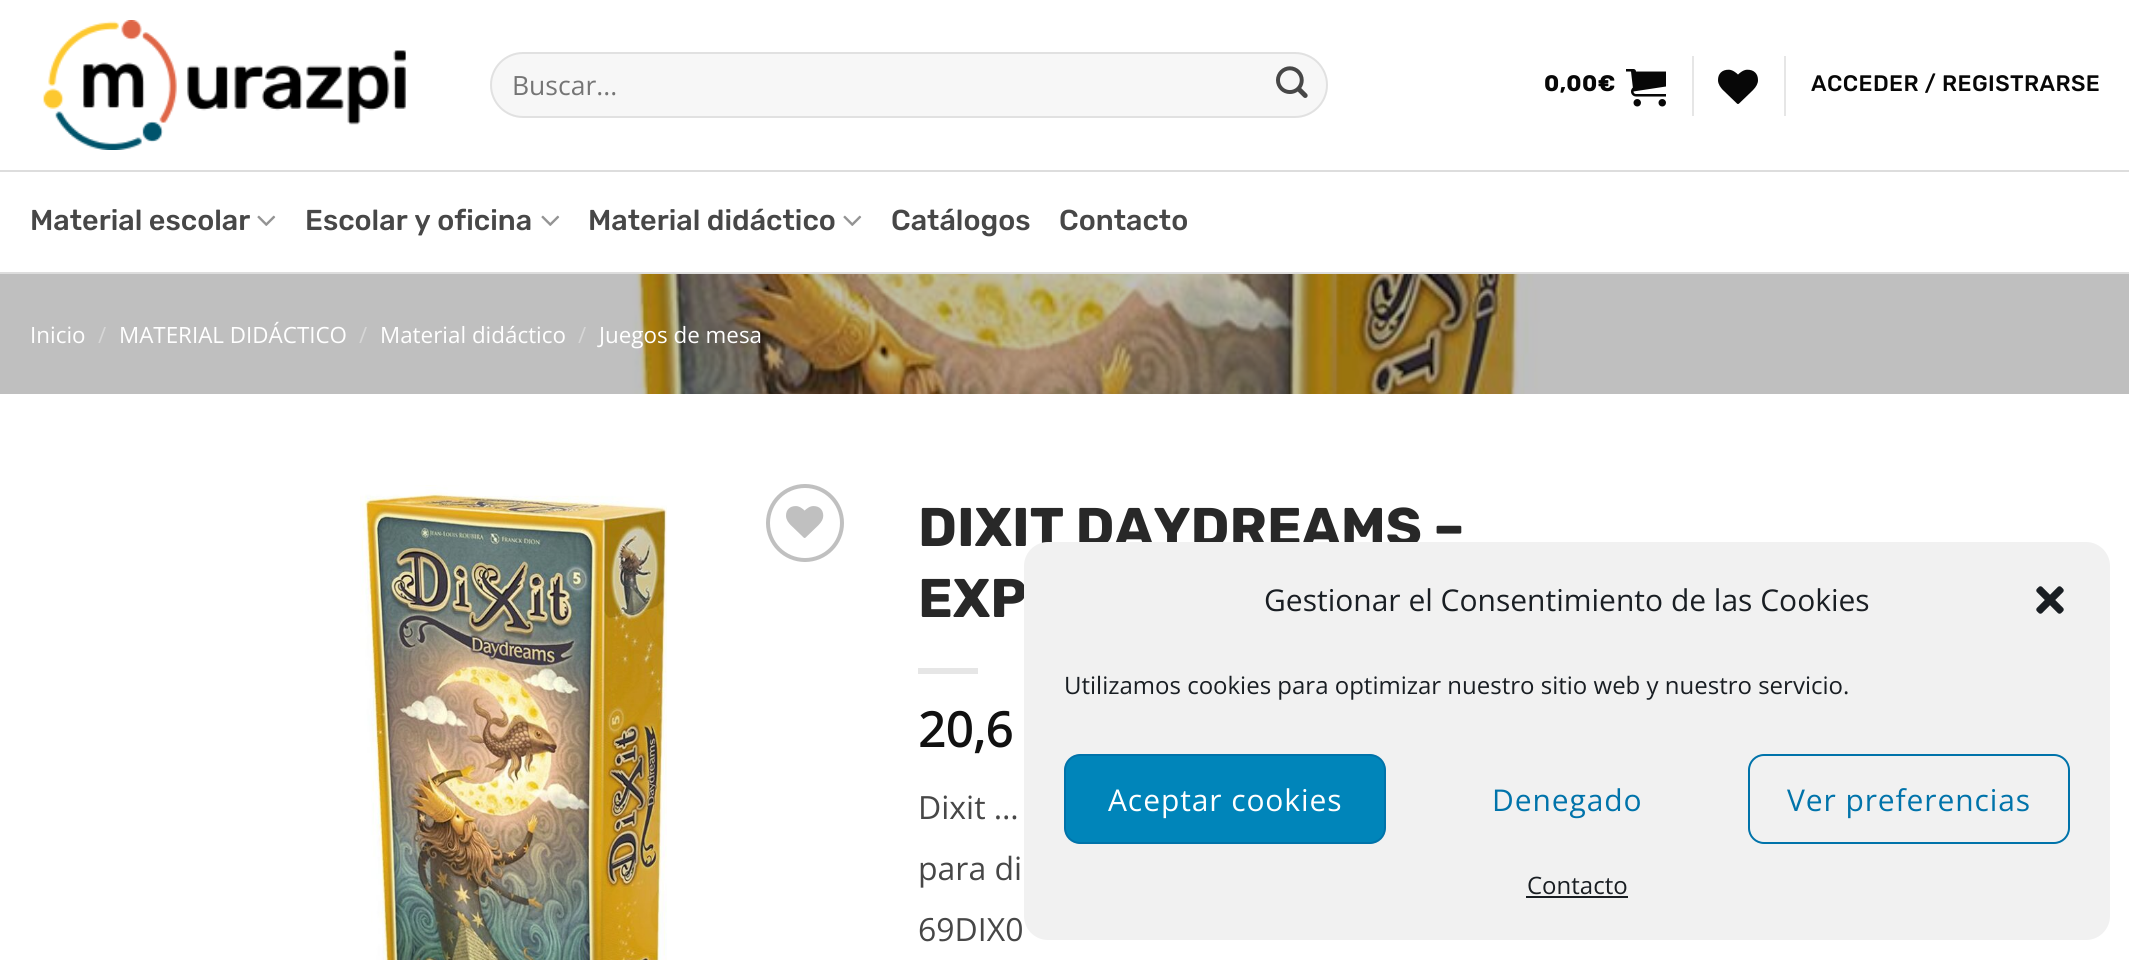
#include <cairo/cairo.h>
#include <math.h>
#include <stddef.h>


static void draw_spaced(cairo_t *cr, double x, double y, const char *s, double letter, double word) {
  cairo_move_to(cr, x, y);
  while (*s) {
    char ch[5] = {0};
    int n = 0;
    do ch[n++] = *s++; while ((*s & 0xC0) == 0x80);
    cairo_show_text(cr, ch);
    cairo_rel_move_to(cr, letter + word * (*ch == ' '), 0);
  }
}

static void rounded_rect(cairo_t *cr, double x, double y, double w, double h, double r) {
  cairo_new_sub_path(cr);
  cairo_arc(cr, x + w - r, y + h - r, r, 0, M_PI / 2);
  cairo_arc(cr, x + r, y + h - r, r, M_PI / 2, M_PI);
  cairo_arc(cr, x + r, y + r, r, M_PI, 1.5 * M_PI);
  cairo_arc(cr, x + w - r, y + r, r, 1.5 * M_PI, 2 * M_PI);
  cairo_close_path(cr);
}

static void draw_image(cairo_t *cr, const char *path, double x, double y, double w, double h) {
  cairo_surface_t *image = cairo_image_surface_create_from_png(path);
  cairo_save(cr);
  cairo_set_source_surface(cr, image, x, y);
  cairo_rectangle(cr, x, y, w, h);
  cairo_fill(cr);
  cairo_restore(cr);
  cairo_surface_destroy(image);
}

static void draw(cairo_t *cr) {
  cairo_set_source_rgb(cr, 1, 1, 1);
  cairo_paint(cr);
  draw_image(cr, "images/1.png", 43, 20, 363, 130);
  cairo_set_source_rgb(cr, 247 / 255.0, 247 / 255.0, 247 / 255.0);
  rounded_rect(cr, 490, 52, 838, 66, 33);
  cairo_fill(cr);
  rounded_rect(cr, 491, 53, 836, 64, 32);
  cairo_set_source_rgba(cr, 0, 0, 0, 0.09);
  cairo_stroke(cr);
  draw_image(cr, "images/2.png", 1276, 66, 32, 32);
  draw_image(cr, "images/3.png", 1626, 69, 40, 38);
  cairo_set_source_rgb(cr, 230 / 255.0, 230 / 255.0, 230 / 255.0);
  cairo_rectangle(cr, 1692, 56, 2, 60);
  cairo_fill(cr);
  draw_image(cr, "images/4.png", 1718, 69, 40, 35);
  cairo_rectangle(cr, 1784, 56, 2, 60);
  cairo_fill(cr);
  cairo_set_source_rgb(cr, 221 / 255.0, 221 / 255.0, 221 / 255.0);
  cairo_rectangle(cr, 0, 170, 2129, 2);
  cairo_fill(cr);
  cairo_rectangle(cr, 0, 272, 2129, 2);
  cairo_fill(cr);
  draw_image(cr, "images/5.png", 257, 215, 19, 11);
  draw_image(cr, "images/5.png", 541, 215, 19, 11);
  draw_image(cr, "images/5.png", 843, 215, 19, 11);
  draw_image(cr, "images/6.png", 0, 274, 2129, 120);
  draw_image(cr, "images/7.png", 360, 485, 307, 475);
  cairo_arc(cr, 805, 523, 37, 0, 2 * M_PI);
  cairo_set_source_rgb(cr, 192 / 255.0, 192 / 255.0, 192 / 255.0);
  cairo_set_line_width(cr, 4);
  cairo_stroke(cr);
  draw_image(cr, "images/8.png", 786, 506, 38, 32);
  cairo_set_source_rgb(cr, 230 / 255.0, 230 / 255.0, 230 / 255.0);
  cairo_rectangle(cr, 918, 668, 60, 6);
  cairo_fill(cr);
  cairo_select_font_face(cr, "Open Sans", CAIRO_FONT_SLANT_NORMAL, CAIRO_FONT_WEIGHT_NORMAL);
  cairo_set_font_size(cr, 26.5);
  cairo_set_source_rgb(cr, 117 / 255.0, 117 / 255.0, 117 / 255.0);
  cairo_move_to(cr, 512, 95);
  cairo_show_text(cr, "Buscar...");
  cairo_select_font_face(cr, "Rubik", CAIRO_FONT_SLANT_NORMAL, CAIRO_FONT_WEIGHT_BOLD);
  cairo_set_font_size(cr, 22.4);
  cairo_set_source_rgb(cr, 7 / 255.0, 7 / 255.0, 7 / 255.0);
  draw_spaced(cr, 1544, 91, "0,00€", 0.45, 0);
  cairo_select_font_face(cr, "Rubik Medium", CAIRO_FONT_SLANT_NORMAL, CAIRO_FONT_WEIGHT_NORMAL);
  draw_spaced(cr, 1811, 91, "ACCEDER / REGISTRARSE", 0.45, 0);
  cairo_set_font_size(cr, 28.75);
  cairo_set_source_rgb(cr, 71 / 255.0, 71 / 255.0, 71 / 255.0);
  cairo_move_to(cr, 30, 230);
  cairo_show_text(cr, "Material escolar");
  cairo_move_to(cr, 305, 230);
  cairo_show_text(cr, "Escolar y oficina");
  cairo_move_to(cr, 588, 230);
  cairo_show_text(cr, "Material didáctico");
  cairo_move_to(cr, 891, 230);
  cairo_show_text(cr, "Catálogos");
  cairo_move_to(cr, 1059, 230);
  cairo_show_text(cr, "Contacto");
  cairo_select_font_face(cr, "Open Sans", CAIRO_FONT_SLANT_NORMAL, CAIRO_FONT_WEIGHT_NORMAL);
  cairo_set_font_size(cr, 22.4);
  cairo_set_source_rgb(cr, 1, 1, 1);
  cairo_move_to(cr, 30, 343);
  cairo_show_text(cr, "Inicio");
  cairo_set_source_rgb(cr, 214 / 255.0, 214 / 255.0, 214 / 255.0);
  cairo_move_to(cr, 98, 343);
  cairo_show_text(cr, "/");
  cairo_set_source_rgb(cr, 1, 1, 1);
  cairo_move_to(cr, 119, 343);
  cairo_show_text(cr, "MATERIAL DIDÁCTICO");
  cairo_set_source_rgb(cr, 214 / 255.0, 214 / 255.0, 214 / 255.0);
  cairo_move_to(cr, 359, 343);
  cairo_show_text(cr, "/");
  cairo_set_source_rgb(cr, 1, 1, 1);
  cairo_move_to(cr, 380, 343);
  cairo_show_text(cr, "Material didáctico");
  cairo_set_source_rgb(cr, 214 / 255.0, 214 / 255.0, 214 / 255.0);
  cairo_move_to(cr, 578, 343);
  cairo_show_text(cr, "/");
  cairo_set_source_rgb(cr, 1, 1, 1);
  cairo_move_to(cr, 599, 343);
  cairo_show_text(cr, "Juegos de mesa");
  cairo_select_font_face(cr, "Rubik", CAIRO_FONT_SLANT_NORMAL, CAIRO_FONT_WEIGHT_BOLD);
  cairo_set_font_size(cr, 54.4);
  cairo_set_source_rgb(cr, 40 / 255.0, 40 / 255.0, 40 / 255.0);
  cairo_move_to(cr, 918, 546);
  cairo_show_text(cr, "DIXIT DAYDREAMS –");
  cairo_move_to(cr, 918, 617);
  cairo_show_text(cr, "EXP");
  cairo_select_font_face(cr, "Open Sans", CAIRO_FONT_SLANT_NORMAL, CAIRO_FONT_WEIGHT_BOLD);
  cairo_set_font_size(cr, 48);
  cairo_set_source_rgb(cr, 17 / 255.0, 17 / 255.0, 17 / 255.0);
  cairo_move_to(cr, 918, 747);
  cairo_show_text(cr, "20,6");
  cairo_select_font_face(cr, "Open Sans", CAIRO_FONT_SLANT_NORMAL, CAIRO_FONT_WEIGHT_NORMAL);
  cairo_set_font_size(cr, 32);
  cairo_set_source_rgb(cr, 71 / 255.0, 71 / 255.0, 71 / 255.0);
  cairo_move_to(cr, 918, 819);
  cairo_show_text(cr, "Dixit …");
  cairo_move_to(cr, 918, 880);
  cairo_show_text(cr, "para di");
  cairo_move_to(cr, 918, 941);
  cairo_show_text(cr, "69DIX0");
  cairo_set_source_rgb(cr, 241 / 255.0, 241 / 255.0, 241 / 255.0);
  rounded_rect(cr, 1024, 542, 1086, 398, 24);
  cairo_fill(cr);
  cairo_set_font_size(cr, 30);
  cairo_set_source_rgb(cr, 25 / 255.0, 30 / 255.0, 35 / 255.0);
  cairo_move_to(cr, 1264, 611);
  cairo_show_text(cr, "Gestionar el Consentimiento de las Cookies");
  draw_image(cr, "images/9.png", 2036, 586, 28, 28);
  cairo_set_font_size(cr, 24);
  cairo_move_to(cr, 1064, 694);
  cairo_show_text(cr, "Utilizamos cookies para optimizar nuestro sitio web y nuestro servicio.");
  cairo_set_source_rgb(cr, 0, 133 / 255.0, 186 / 255.0);
  rounded_rect(cr, 1065, 755, 320, 88, 15);
  cairo_fill_preserve(cr);
  cairo_set_source_rgb(cr, 0, 115 / 255.0, 170 / 255.0);
  cairo_set_line_width(cr, 2);
  cairo_stroke(cr);
  cairo_set_font_size(cr, 30);
  cairo_set_source_rgb(cr, 1, 1, 1);
  draw_spaced(cr, 1108, 811, "Aceptar cookies", 0.9, 0);
  cairo_set_source_rgb(cr, 0, 115 / 255.0, 170 / 255.0);
  draw_spaced(cr, 1492, 811, "Denegado", 0.9, 0);
  rounded_rect(cr, 1749, 755, 320, 88, 15);
  cairo_stroke(cr);
  draw_spaced(cr, 1787, 811, "Ver preferencias", 0.9, 0);
  cairo_set_font_size(cr, 24);
  cairo_set_source_rgb(cr, 25 / 255.0, 30 / 255.0, 35 / 255.0);
  cairo_move_to(cr, 1527, 894);
  cairo_show_text(cr, "Contacto");
  cairo_rectangle(cr, 1526, 896, 102, 2);
  cairo_fill(cr);
}

int main(void) {
  cairo_surface_t *surface = cairo_image_surface_create(CAIRO_FORMAT_RGB24, 2129, 960);
  cairo_t *cr = cairo_create(surface);
  cairo_font_options_t *options = cairo_font_options_create();
  cairo_font_options_set_hint_metrics(options, CAIRO_HINT_METRICS_OFF);
  cairo_font_options_set_hint_style(options, CAIRO_HINT_STYLE_NONE);
  cairo_set_font_options(cr, options);
  cairo_set_miter_limit(cr, 4);
  draw(cr);
  cairo_surface_write_to_png(surface, "out.png");
  cairo_font_options_destroy(options);
  cairo_destroy(cr);
  cairo_surface_destroy(surface);
  return 0;
}
